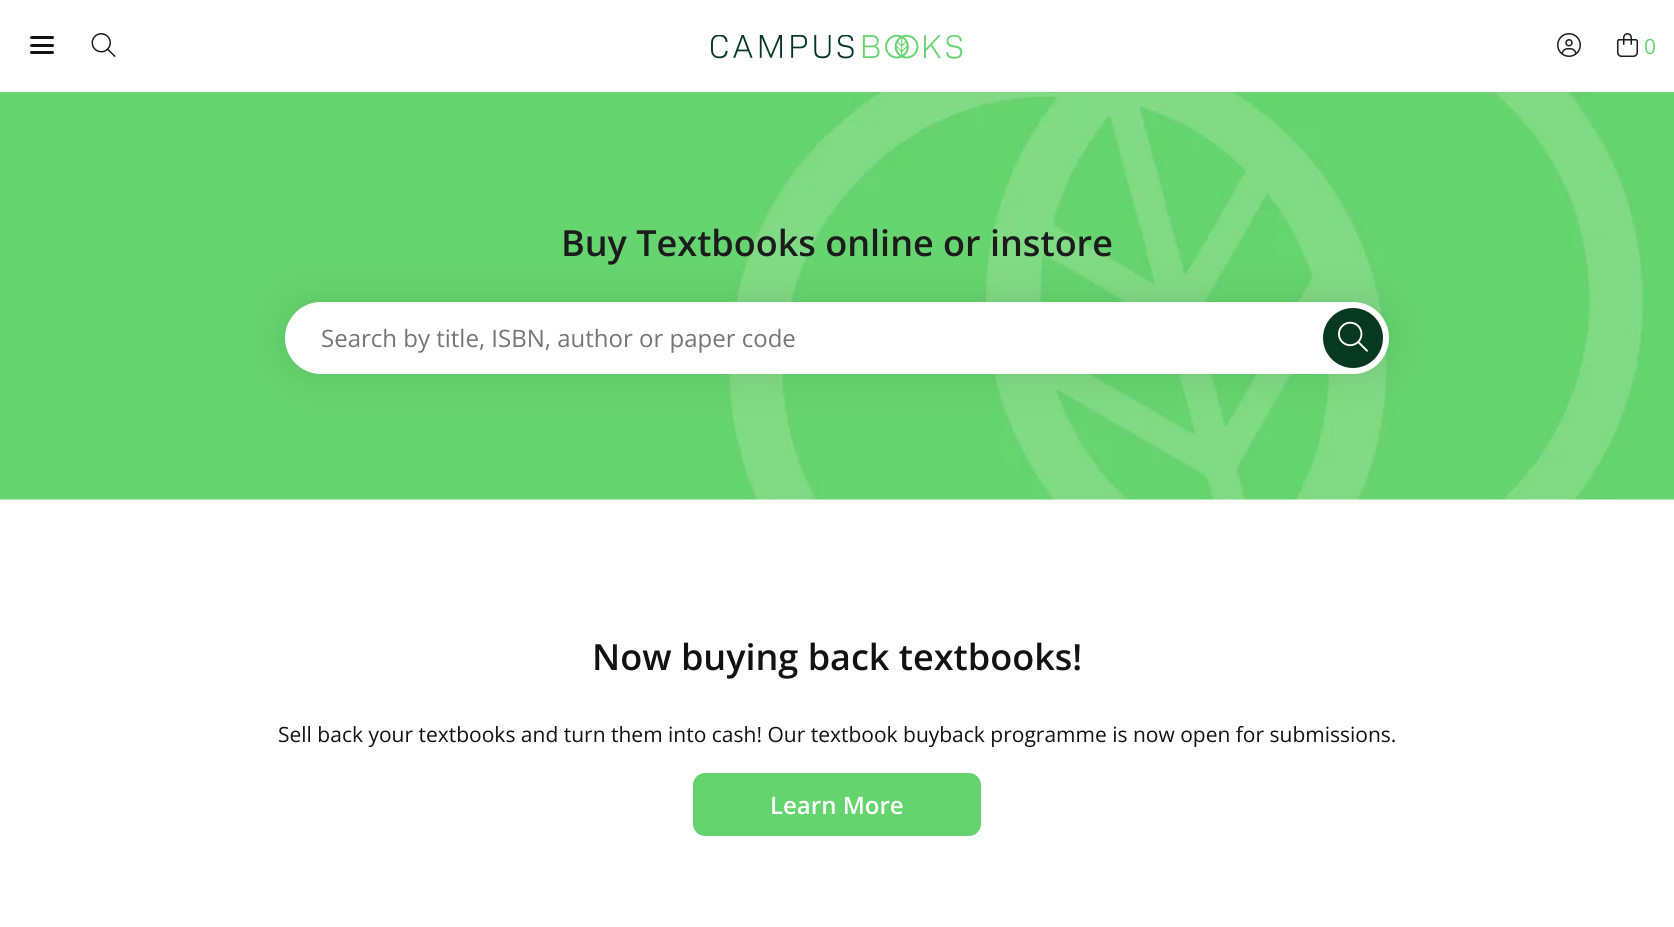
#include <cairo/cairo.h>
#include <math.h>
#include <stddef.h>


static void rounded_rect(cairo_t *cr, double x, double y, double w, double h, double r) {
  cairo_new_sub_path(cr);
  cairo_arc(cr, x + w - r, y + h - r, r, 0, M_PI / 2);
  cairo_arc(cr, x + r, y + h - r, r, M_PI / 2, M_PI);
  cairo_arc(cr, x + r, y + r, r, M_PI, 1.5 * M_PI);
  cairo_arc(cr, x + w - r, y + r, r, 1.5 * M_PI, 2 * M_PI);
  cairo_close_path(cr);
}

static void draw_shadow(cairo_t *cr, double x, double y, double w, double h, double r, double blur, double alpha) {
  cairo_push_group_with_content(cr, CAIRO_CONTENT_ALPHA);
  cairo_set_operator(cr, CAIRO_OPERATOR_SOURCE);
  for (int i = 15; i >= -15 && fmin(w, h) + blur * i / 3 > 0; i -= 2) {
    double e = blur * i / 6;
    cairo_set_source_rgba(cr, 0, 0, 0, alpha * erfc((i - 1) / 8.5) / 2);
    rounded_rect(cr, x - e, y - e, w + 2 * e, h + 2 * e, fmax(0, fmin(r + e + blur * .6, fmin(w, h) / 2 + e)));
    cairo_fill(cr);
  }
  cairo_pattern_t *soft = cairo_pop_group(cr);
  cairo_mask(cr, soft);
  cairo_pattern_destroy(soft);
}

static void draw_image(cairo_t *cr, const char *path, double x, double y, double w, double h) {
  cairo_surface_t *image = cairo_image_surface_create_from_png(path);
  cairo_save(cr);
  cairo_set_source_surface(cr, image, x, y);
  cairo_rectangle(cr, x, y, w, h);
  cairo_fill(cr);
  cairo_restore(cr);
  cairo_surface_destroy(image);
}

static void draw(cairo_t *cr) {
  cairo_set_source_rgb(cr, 1, 1, 1);
  cairo_paint(cr);
  cairo_set_source_rgb(cr, 18 / 255.0, 18 / 255.0, 18 / 255.0);
  rounded_rect(cr, 30, 44, 24, 3, 1.5);
  cairo_fill(cr);
  rounded_rect(cr, 30, 36, 24, 3, 1.5);
  cairo_fill(cr);
  rounded_rect(cr, 30, 51, 24, 3, 1.5);
  cairo_fill(cr);
  draw_image(cr, "images/1.png", 91, 33, 25, 24);
  draw_image(cr, "images/2.png", 711, 35, 252, 24);
  draw_image(cr, "images/3.png", 1557, 33, 24, 24);
  draw_image(cr, "images/4.png", 1617, 33, 21, 24);
  cairo_set_source_rgb(cr, 248 / 255.0, 248 / 255.0, 248 / 255.0);
  cairo_rectangle(cr, 0, 499, 1674, 1);
  cairo_fill(cr);
  draw_image(cr, "images/5.png", 0, 92, 1674, 408);
  cairo_set_source_rgb(cr, 0, 0, 0);
  draw_shadow(cr, 285, 302, 1104, 72, 36, 21, 0.1);
  cairo_set_source_rgb(cr, 1, 1, 1);
  rounded_rect(cr, 285, 302, 1104, 72, 36);
  cairo_fill(cr);
  cairo_set_source_rgb(cr, 7 / 255.0, 57 / 255.0, 34 / 255.0);
  cairo_arc(cr, 1353, 338, 30, 0, 2 * M_PI);
  cairo_fill(cr);
  draw_image(cr, "images/6.png", 1338, 321, 30, 31);
  cairo_set_source_rgb(cr, 101 / 255.0, 212 / 255.0, 110 / 255.0);
  rounded_rect(cr, 694, 774, 286, 61, 11);
  cairo_fill_preserve(cr);
  cairo_stroke(cr);
  cairo_select_font_face(cr, "Open Sans", CAIRO_FONT_SLANT_NORMAL, CAIRO_FONT_WEIGHT_NORMAL);
  cairo_set_font_size(cr, 21);
  cairo_move_to(cr, 1644, 54);
  cairo_show_text(cr, "0");
  cairo_select_font_face(cr, "Open Sans SemiBold", CAIRO_FONT_SLANT_NORMAL, CAIRO_FONT_WEIGHT_NORMAL);
  cairo_set_font_size(cr, 36);
  cairo_set_source_rgb(cr, 28 / 255.0, 28 / 255.0, 28 / 255.0);
  cairo_move_to(cr, 561, 256);
  cairo_show_text(cr, "Buy Textbooks online or instore");
  cairo_select_font_face(cr, "Open Sans", CAIRO_FONT_SLANT_NORMAL, CAIRO_FONT_WEIGHT_NORMAL);
  cairo_set_font_size(cr, 24);
  cairo_set_source_rgb(cr, 117 / 255.0, 117 / 255.0, 117 / 255.0);
  cairo_move_to(cr, 321, 347);
  cairo_show_text(cr, "Search by title, ISBN, author or paper code");
  cairo_select_font_face(cr, "Open Sans SemiBold", CAIRO_FONT_SLANT_NORMAL, CAIRO_FONT_WEIGHT_NORMAL);
  cairo_set_font_size(cr, 36);
  cairo_set_source_rgb(cr, 18 / 255.0, 18 / 255.0, 18 / 255.0);
  cairo_move_to(cr, 592, 670);
  cairo_show_text(cr, "Now buying back textbooks!");
  cairo_select_font_face(cr, "Open Sans", CAIRO_FONT_SLANT_NORMAL, CAIRO_FONT_WEIGHT_NORMAL);
  cairo_set_font_size(cr, 21);
  cairo_move_to(cr, 278, 742);
  cairo_show_text(cr, "Sell back your textbooks and turn them into cash! Our textbook buyback programme is now open for submissions.");
  cairo_select_font_face(cr, "Open Sans SemiBold", CAIRO_FONT_SLANT_NORMAL, CAIRO_FONT_WEIGHT_NORMAL);
  cairo_set_font_size(cr, 24);
  cairo_set_source_rgb(cr, 1, 1, 1);
  cairo_move_to(cr, 770, 814);
  cairo_show_text(cr, "Learn More");
}

int main(void) {
  cairo_surface_t *surface = cairo_image_surface_create(CAIRO_FORMAT_RGB24, 1674, 927);
  cairo_t *cr = cairo_create(surface);
  cairo_font_options_t *options = cairo_font_options_create();
  cairo_font_options_set_hint_metrics(options, CAIRO_HINT_METRICS_OFF);
  cairo_font_options_set_hint_style(options, CAIRO_HINT_STYLE_NONE);
  cairo_set_font_options(cr, options);
  cairo_set_miter_limit(cr, 4);
  draw(cr);
  cairo_surface_write_to_png(surface, "out.png");
  cairo_font_options_destroy(options);
  cairo_destroy(cr);
  cairo_surface_destroy(surface);
  return 0;
}
